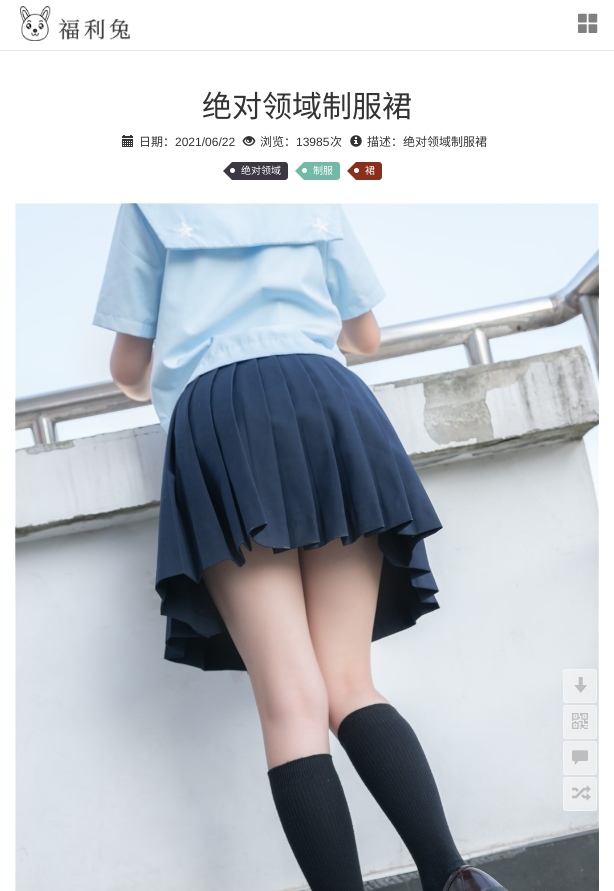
#include <cairo/cairo.h>
#include <math.h>
#include <stddef.h>


static void rounded_rect(cairo_t *cr, double x, double y, double w, double h, double r) {
  cairo_new_sub_path(cr);
  cairo_arc(cr, x + w - r, y + h - r, r, 0, M_PI / 2);
  cairo_arc(cr, x + r, y + h - r, r, M_PI / 2, M_PI);
  cairo_arc(cr, x + r, y + r, r, M_PI, 1.5 * M_PI);
  cairo_arc(cr, x + w - r, y + r, r, 1.5 * M_PI, 2 * M_PI);
  cairo_close_path(cr);
}

static void draw_image(cairo_t *cr, const char *path, double x, double y, double w, double h) {
  cairo_surface_t *image = cairo_image_surface_create_from_png(path);
  cairo_save(cr);
  cairo_set_source_surface(cr, image, x, y);
  cairo_rectangle(cr, x, y, w, h);
  cairo_fill(cr);
  cairo_restore(cr);
  cairo_surface_destroy(image);
}

static void draw(cairo_t *cr) {
  cairo_set_source_rgb(cr, 1, 1, 1);
  cairo_paint(cr);
  cairo_set_source_rgb(cr, 231 / 255.0, 231 / 255.0, 231 / 255.0);
  cairo_rectangle(cr, 0, 50, 614, 1);
  cairo_fill(cr);
  draw_image(cr, "images/1.png", 20, 6, 110, 35);
  draw_image(cr, "images/2.png", 578, 13, 20, 20);
  draw_image(cr, "images/3.png", 122, 135, 11, 12);
  draw_image(cr, "images/4.png", 242, 136, 14, 10);
  draw_image(cr, "images/5.png", 350, 135, 12, 12);
  cairo_set_source_rgb(cr, 60 / 255.0, 54 / 255.0, 69 / 255.0);
  cairo_new_path(cr);
  cairo_move_to(cr, 232, 162);
  cairo_line_to(cr, 285, 162);
  cairo_curve_to(cr, 286.5, 162, 288, 163.5, 288, 165);
  cairo_line_to(cr, 288, 177);
  cairo_curve_to(cr, 288, 178.5, 286.5, 180, 285, 180);
  cairo_line_to(cr, 232, 180);
  cairo_close_path(cr);
  cairo_fill(cr);
  cairo_new_path(cr);
  cairo_move_to(cr, 232, 162);
  cairo_line_to(cr, 232, 180);
  cairo_line_to(cr, 223, 171);
  cairo_close_path(cr);
  cairo_fill(cr);
  cairo_set_source_rgb(cr, 1, 1, 1);
  cairo_arc(cr, 232.5, 170.5, 2.5, 0, 2 * M_PI);
  cairo_fill(cr);
  cairo_set_source_rgb(cr, 114 / 255.0, 186 / 255.0, 167 / 255.0);
  cairo_new_path(cr);
  cairo_move_to(cr, 304, 162);
  cairo_line_to(cr, 337, 162);
  cairo_curve_to(cr, 338.5, 162, 340, 163.5, 340, 165);
  cairo_line_to(cr, 340, 177);
  cairo_curve_to(cr, 340, 178.5, 338.5, 180, 337, 180);
  cairo_line_to(cr, 304, 180);
  cairo_close_path(cr);
  cairo_fill(cr);
  cairo_new_path(cr);
  cairo_move_to(cr, 304, 162);
  cairo_line_to(cr, 304, 180);
  cairo_line_to(cr, 295, 171);
  cairo_close_path(cr);
  cairo_fill(cr);
  cairo_set_source_rgb(cr, 1, 1, 1);
  cairo_arc(cr, 304.5, 170.5, 2.5, 0, 2 * M_PI);
  cairo_fill(cr);
  cairo_set_source_rgb(cr, 137 / 255.0, 47 / 255.0, 27 / 255.0);
  cairo_new_path(cr);
  cairo_move_to(cr, 356, 162);
  cairo_line_to(cr, 379, 162);
  cairo_curve_to(cr, 380.5, 162, 382, 163.5, 382, 165);
  cairo_line_to(cr, 382, 177);
  cairo_curve_to(cr, 382, 178.5, 380.5, 180, 379, 180);
  cairo_line_to(cr, 356, 180);
  cairo_close_path(cr);
  cairo_fill(cr);
  cairo_new_path(cr);
  cairo_move_to(cr, 356, 162);
  cairo_line_to(cr, 356, 180);
  cairo_line_to(cr, 347, 171);
  cairo_close_path(cr);
  cairo_fill(cr);
  cairo_set_source_rgb(cr, 1, 1, 1);
  cairo_arc(cr, 356.5, 170.5, 2.5, 0, 2 * M_PI);
  cairo_fill(cr);
  draw_image(cr, "images/6.png", 15, 203, 584, 688);
  cairo_set_source_rgba(cr, 245 / 255.0, 245 / 255.0, 245 / 255.0, 0.7);
  rounded_rect(cr, 563, 669, 34, 34, 3);
  cairo_fill(cr);
  rounded_rect(cr, 563.5, 669.5, 33, 33, 2.5);
  cairo_set_line_width(cr, 1);
  cairo_stroke(cr);
  draw_image(cr, "images/7.png", 574, 677, 13, 16);
  rounded_rect(cr, 563, 705, 34, 34, 3);
  cairo_fill(cr);
  rounded_rect(cr, 563.5, 705.5, 33, 33, 2.5);
  cairo_stroke(cr);
  draw_image(cr, "images/8.png", 572, 713, 16, 16);
  rounded_rect(cr, 563, 741, 34, 34, 3);
  cairo_fill(cr);
  rounded_rect(cr, 563.5, 741.5, 33, 33, 2.5);
  cairo_stroke(cr);
  draw_image(cr, "images/9.png", 572, 750, 16, 15);
  rounded_rect(cr, 563, 777, 34, 34, 3);
  cairo_fill(cr);
  rounded_rect(cr, 563.5, 777.5, 33, 33, 2.5);
  cairo_stroke(cr);
  draw_image(cr, "images/10.png", 572, 785, 19, 16);
  cairo_select_font_face(cr, "Noto Sans CJK SC", CAIRO_FONT_SLANT_NORMAL, CAIRO_FONT_WEIGHT_NORMAL);
  cairo_set_font_size(cr, 30);
  cairo_set_source_rgb(cr, 51 / 255.0, 51 / 255.0, 51 / 255.0);
  cairo_move_to(cr, 202, 117);
  cairo_show_text(cr, "绝对领域制服裙");
  cairo_set_font_size(cr, 12);
  cairo_move_to(cr, 139, 146);
  cairo_show_text(cr, "日期：");
  cairo_select_font_face(cr, "Liberation Sans", CAIRO_FONT_SLANT_NORMAL, CAIRO_FONT_WEIGHT_NORMAL);
  cairo_move_to(cr, 175, 146);
  cairo_show_text(cr, "2021/06/22");
  cairo_select_font_face(cr, "Noto Sans CJK SC", CAIRO_FONT_SLANT_NORMAL, CAIRO_FONT_WEIGHT_NORMAL);
  cairo_move_to(cr, 260, 146);
  cairo_show_text(cr, "浏览：");
  cairo_select_font_face(cr, "Liberation Sans", CAIRO_FONT_SLANT_NORMAL, CAIRO_FONT_WEIGHT_NORMAL);
  cairo_move_to(cr, 296, 146);
  cairo_show_text(cr, "13985");
  cairo_select_font_face(cr, "Noto Sans CJK SC", CAIRO_FONT_SLANT_NORMAL, CAIRO_FONT_WEIGHT_NORMAL);
  cairo_move_to(cr, 330, 146);
  cairo_show_text(cr, "次");
  cairo_move_to(cr, 367, 146);
  cairo_show_text(cr, "描述：绝对领域制服裙");
  cairo_set_font_size(cr, 10);
  cairo_set_source_rgb(cr, 1, 1, 1);
  cairo_move_to(cr, 241, 174);
  cairo_show_text(cr, "绝对领域");
  cairo_move_to(cr, 313, 174);
  cairo_show_text(cr, "制服");
  cairo_move_to(cr, 365, 174);
  cairo_show_text(cr, "裙");
}

int main(void) {
  cairo_surface_t *surface = cairo_image_surface_create(CAIRO_FORMAT_RGB24, 614, 891);
  cairo_t *cr = cairo_create(surface);
  cairo_font_options_t *options = cairo_font_options_create();
  cairo_font_options_set_hint_metrics(options, CAIRO_HINT_METRICS_OFF);
  cairo_font_options_set_hint_style(options, CAIRO_HINT_STYLE_NONE);
  cairo_set_font_options(cr, options);
  cairo_set_miter_limit(cr, 4);
  draw(cr);
  cairo_surface_write_to_png(surface, "out.png");
  cairo_font_options_destroy(options);
  cairo_destroy(cr);
  cairo_surface_destroy(surface);
  return 0;
}
